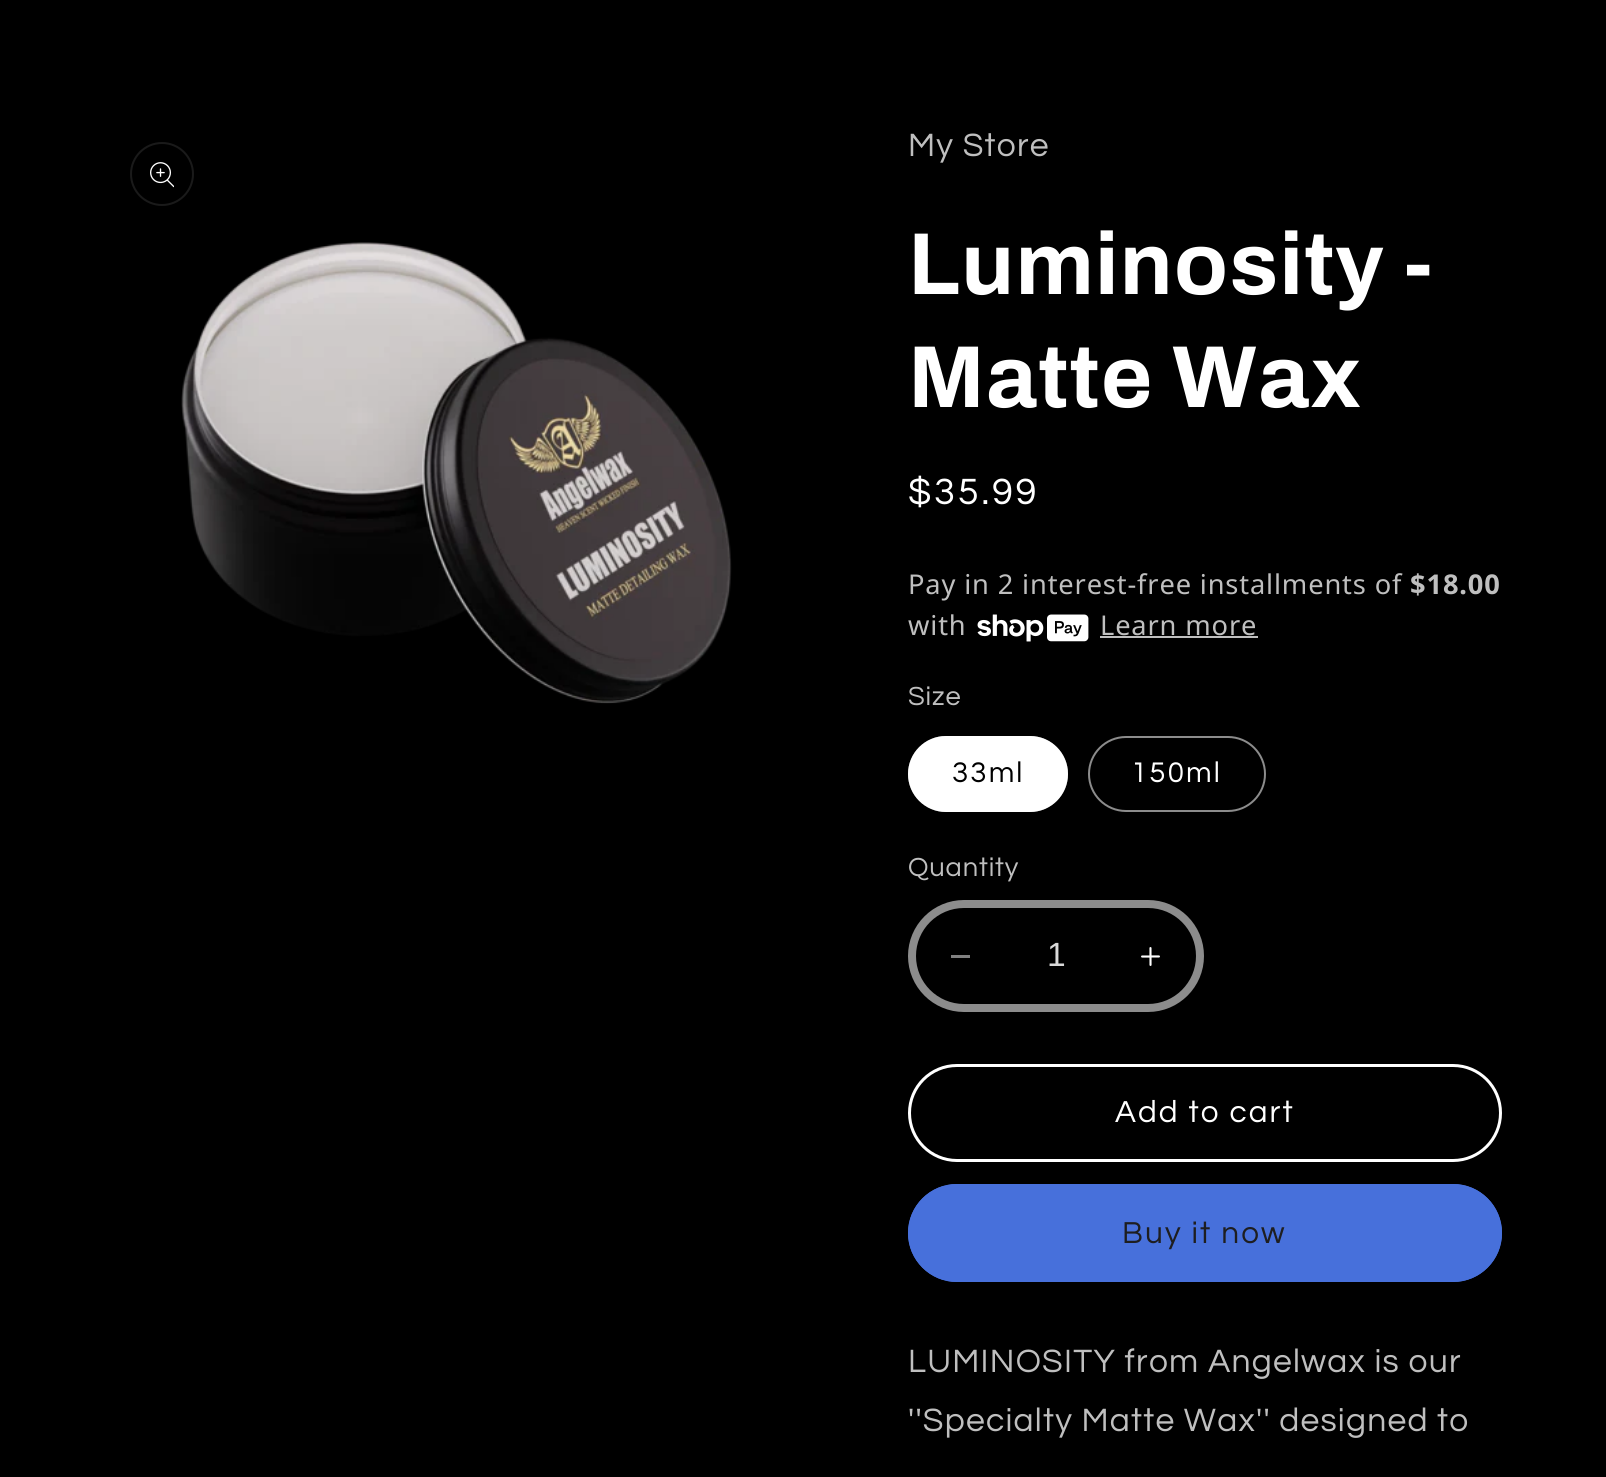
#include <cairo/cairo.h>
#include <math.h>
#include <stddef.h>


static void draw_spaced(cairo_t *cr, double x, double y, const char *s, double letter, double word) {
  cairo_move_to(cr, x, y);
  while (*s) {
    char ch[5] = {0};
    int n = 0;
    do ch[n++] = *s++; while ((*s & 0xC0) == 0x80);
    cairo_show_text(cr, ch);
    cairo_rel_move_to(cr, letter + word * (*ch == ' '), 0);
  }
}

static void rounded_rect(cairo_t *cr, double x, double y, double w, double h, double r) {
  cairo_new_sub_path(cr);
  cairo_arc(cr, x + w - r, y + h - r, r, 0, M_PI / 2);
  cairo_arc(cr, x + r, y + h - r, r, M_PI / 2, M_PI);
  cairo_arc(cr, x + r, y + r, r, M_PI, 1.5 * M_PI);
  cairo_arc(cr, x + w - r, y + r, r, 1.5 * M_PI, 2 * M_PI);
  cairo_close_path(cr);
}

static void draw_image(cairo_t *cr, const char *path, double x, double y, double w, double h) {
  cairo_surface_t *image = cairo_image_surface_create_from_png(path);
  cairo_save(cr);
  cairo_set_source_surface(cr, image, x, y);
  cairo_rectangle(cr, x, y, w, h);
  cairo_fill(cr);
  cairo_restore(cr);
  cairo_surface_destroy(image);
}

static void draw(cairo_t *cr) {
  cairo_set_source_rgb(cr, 0, 0, 0);
  cairo_paint(cr);
  cairo_arc(cr, 162, 174, 31, 0, 2 * M_PI);
  cairo_set_source_rgb(cr, 26 / 255.0, 26 / 255.0, 26 / 255.0);
  cairo_stroke(cr);
  draw_image(cr, "images/1.png", 150, 162, 24, 26);
  draw_image(cr, "images/2.png", 181, 242, 551, 462);
  draw_image(cr, "images/3.png", 977, 614, 112, 28);
  cairo_set_source_rgb(cr, 191 / 255.0, 191 / 255.0, 191 / 255.0);
  cairo_rectangle(cr, 1100, 636, 158, 2);
  cairo_fill(cr);
  cairo_set_source_rgb(cr, 1, 1, 1);
  rounded_rect(cr, 908, 736, 160, 76, 38);
  cairo_fill(cr);
  rounded_rect(cr, 909, 737, 158, 74, 37);
  cairo_set_source_rgba(cr, 1, 1, 1, 0.55);
  cairo_stroke(cr);
  rounded_rect(cr, 1089, 737, 176, 74, 37);
  cairo_set_source_rgb(cr, 140 / 255.0, 140 / 255.0, 140 / 255.0);
  cairo_stroke(cr);
  cairo_set_source_rgb(cr, 128 / 255.0, 128 / 255.0, 128 / 255.0);
  cairo_rectangle(cr, 951, 955, 19, 3);
  cairo_fill(cr);
  draw_image(cr, "images/4.png", 1141, 947, 19, 19);
  rounded_rect(cr, 912, 904, 288, 104, 52);
  cairo_set_source_rgb(cr, 140 / 255.0, 140 / 255.0, 140 / 255.0);
  cairo_set_line_width(cr, 8);
  cairo_stroke(cr);
  rounded_rect(cr, 909.5, 1065.5, 591, 95, 47.5);
  cairo_set_source_rgb(cr, 1, 1, 1);
  cairo_set_line_width(cr, 3);
  cairo_stroke(cr);
  cairo_set_source_rgb(cr, 71 / 255.0, 112 / 255.0, 219 / 255.0);
  rounded_rect(cr, 908, 1184, 594, 98, 49);
  cairo_fill(cr);
  rounded_rect(cr, 909, 1185, 592, 96, 48);
  cairo_set_line_width(cr, 2);
  cairo_stroke(cr);
  cairo_select_font_face(cr, "Questrial", CAIRO_FONT_SLANT_NORMAL, CAIRO_FONT_WEIGHT_NORMAL);
  cairo_set_font_size(cr, 33.6);
  cairo_set_source_rgb(cr, 191 / 255.0, 191 / 255.0, 191 / 255.0);
  draw_spaced(cr, 908, 156, "My Store", 1.25, 0);
  cairo_select_font_face(cr, "Archivo", CAIRO_FONT_SLANT_NORMAL, CAIRO_FONT_WEIGHT_BOLD);
  cairo_set_font_size(cr, 88);
  cairo_set_source_rgb(cr, 1, 1, 1);
  draw_spaced(cr, 908, 294, "Luminosity -", 1.25, 0);
  draw_spaced(cr, 908, 407, "Matte Wax", 1.25, 0);
  cairo_select_font_face(cr, "Questrial", CAIRO_FONT_SLANT_NORMAL, CAIRO_FONT_WEIGHT_NORMAL);
  cairo_set_font_size(cr, 38);
  draw_spaced(cr, 908, 504, "$35.99", 2.75, 0);
  cairo_select_font_face(cr, "Noto Sans", CAIRO_FONT_SLANT_NORMAL, CAIRO_FONT_WEIGHT_NORMAL);
  cairo_set_font_size(cr, 27.25);
  cairo_set_source_rgb(cr, 191 / 255.0, 191 / 255.0, 191 / 255.0);
  draw_spaced(cr, 908, 594, "Pay in 2 interest-free installments of", 0.85, 0);
  cairo_select_font_face(cr, "Noto Sans", CAIRO_FONT_SLANT_NORMAL, CAIRO_FONT_WEIGHT_BOLD);
  draw_spaced(cr, 1410, 594, "$18.00", 0.85, 0);
  cairo_select_font_face(cr, "Noto Sans", CAIRO_FONT_SLANT_NORMAL, CAIRO_FONT_WEIGHT_NORMAL);
  draw_spaced(cr, 908, 635, "with", 0.85, 0);
  draw_spaced(cr, 1100, 635, "Learn more", 0.85, 0);
  cairo_select_font_face(cr, "Questrial", CAIRO_FONT_SLANT_NORMAL, CAIRO_FONT_WEIGHT_NORMAL);
  draw_spaced(cr, 908, 705, "Size", 0.85, 0);
  cairo_set_font_size(cr, 29.5);
  cairo_set_source_rgb(cr, 0, 0, 0);
  draw_spaced(cr, 952, 782, "33ml", 2.1, 0);
  cairo_set_source_rgb(cr, 1, 1, 1);
  draw_spaced(cr, 1131, 782, "150ml", 2.1, 0);
  cairo_set_font_size(cr, 27.25);
  cairo_set_source_rgb(cr, 191 / 255.0, 191 / 255.0, 191 / 255.0);
  draw_spaced(cr, 908, 876, "Quantity", 0.85, 0);
  cairo_select_font_face(cr, "Liberation Sans", CAIRO_FONT_SLANT_NORMAL, CAIRO_FONT_WEIGHT_NORMAL);
  cairo_set_font_size(cr, 33.6);
  cairo_set_source_rgb(cr, 217 / 255.0, 217 / 255.0, 217 / 255.0);
  cairo_move_to(cr, 1047, 966);
  cairo_show_text(cr, "1");
  cairo_select_font_face(cr, "Questrial", CAIRO_FONT_SLANT_NORMAL, CAIRO_FONT_WEIGHT_NORMAL);
  cairo_set_font_size(cr, 31.5);
  cairo_set_source_rgb(cr, 1, 1, 1);
  draw_spaced(cr, 1115, 1122, "Add to cart", 2.1, 0);
  cairo_set_source_rgb(cr, 30 / 255.0, 30 / 255.0, 32 / 255.0);
  draw_spaced(cr, 1122, 1243, "Buy it now", 2.1, 0);
  cairo_set_font_size(cr, 33.6);
  cairo_set_source_rgb(cr, 191 / 255.0, 191 / 255.0, 191 / 255.0);
  draw_spaced(cr, 908, 1372, "LUMINOSITY from Angelwax is our", 1.25, 0);
  draw_spaced(cr, 908, 1431, "''Specialty Matte Wax'' designed to", 1.25, 0);
}

int main(void) {
  cairo_surface_t *surface = cairo_image_surface_create(CAIRO_FORMAT_RGB24, 1606, 1477);
  cairo_t *cr = cairo_create(surface);
  cairo_font_options_t *options = cairo_font_options_create();
  cairo_font_options_set_hint_metrics(options, CAIRO_HINT_METRICS_OFF);
  cairo_font_options_set_hint_style(options, CAIRO_HINT_STYLE_NONE);
  cairo_set_font_options(cr, options);
  cairo_set_miter_limit(cr, 4);
  draw(cr);
  cairo_surface_write_to_png(surface, "out.png");
  cairo_font_options_destroy(options);
  cairo_destroy(cr);
  cairo_surface_destroy(surface);
  return 0;
}
